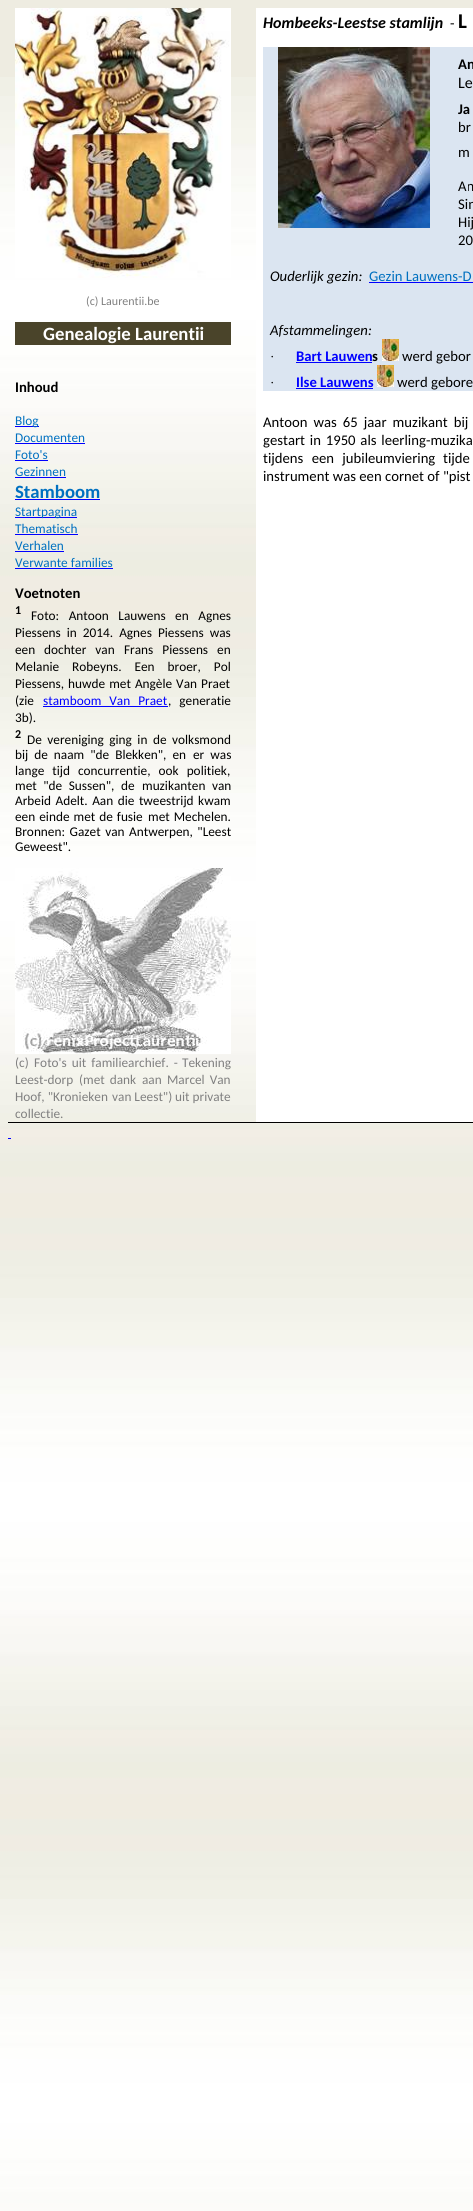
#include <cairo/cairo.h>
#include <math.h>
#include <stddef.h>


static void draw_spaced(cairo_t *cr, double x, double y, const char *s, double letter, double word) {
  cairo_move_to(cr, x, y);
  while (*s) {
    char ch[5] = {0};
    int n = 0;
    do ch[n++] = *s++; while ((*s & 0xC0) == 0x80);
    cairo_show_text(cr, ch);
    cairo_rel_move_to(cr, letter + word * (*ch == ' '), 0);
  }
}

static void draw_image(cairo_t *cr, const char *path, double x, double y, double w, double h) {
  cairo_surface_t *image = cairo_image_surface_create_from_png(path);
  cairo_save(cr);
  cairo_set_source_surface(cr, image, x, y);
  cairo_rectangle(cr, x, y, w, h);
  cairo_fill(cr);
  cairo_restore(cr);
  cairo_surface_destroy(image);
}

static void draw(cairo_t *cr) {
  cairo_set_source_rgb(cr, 238 / 255.0, 236 / 255.0, 225 / 255.0);
  cairo_paint(cr);
  draw_image(cr, "images/1.png", 0, 77, 473, 2134);
  cairo_set_source_rgb(cr, 1, 1, 1);
  cairo_rectangle(cr, 256, 8, 217, 1114);
  cairo_fill(cr);
  cairo_set_source_rgb(cr, 219 / 255.0, 229 / 255.0, 241 / 255.0);
  cairo_rectangle(cr, 263, 47, 210, 344);
  cairo_fill(cr);
  draw_image(cr, "images/2.png", 278, 47, 152, 181);
  cairo_set_source_rgb(cr, 0, 0, 1);
  cairo_rectangle(cr, 369, 282, 104, 1);
  cairo_fill(cr);
  cairo_rectangle(cr, 296, 362, 76, 1);
  cairo_fill(cr);
  draw_image(cr, "images/3.png", 382, 339, 17, 22);
  cairo_rectangle(cr, 296, 388, 77, 1);
  cairo_fill(cr);
  draw_image(cr, "images/3.png", 377, 365, 17, 22);
  draw_image(cr, "images/4.png", 15, 8, 216, 270);
  cairo_set_source_rgb(cr, 74 / 255.0, 68 / 255.0, 42 / 255.0);
  cairo_rectangle(cr, 15, 322, 216, 23);
  cairo_fill(cr);
  cairo_set_source_rgb(cr, 0, 0, 1);
  cairo_rectangle(cr, 15, 426, 24, 1);
  cairo_fill(cr);
  cairo_rectangle(cr, 15, 443, 70, 1);
  cairo_fill(cr);
  cairo_rectangle(cr, 15, 460, 33, 1);
  cairo_fill(cr);
  cairo_rectangle(cr, 15, 477, 51, 1);
  cairo_fill(cr);
  cairo_rectangle(cr, 15, 499, 85, 1);
  cairo_fill(cr);
  cairo_rectangle(cr, 15, 517, 62, 1);
  cairo_fill(cr);
  cairo_rectangle(cr, 15, 534, 63, 1);
  cairo_fill(cr);
  cairo_rectangle(cr, 15, 551, 49, 1);
  cairo_fill(cr);
  cairo_rectangle(cr, 15, 568, 98, 1);
  cairo_fill(cr);
  cairo_rectangle(cr, 43, 706, 125, 1);
  cairo_fill(cr);
  draw_image(cr, "images/5.png", 15, 868, 216, 186);
  cairo_set_source_rgb(cr, 0, 0, 0);
  cairo_rectangle(cr, 8, 1122, 465, 1);
  cairo_fill(cr);
  cairo_set_source_rgb(cr, 0, 0, 1);
  cairo_rectangle(cr, 8, 1138, 3, 1);
  cairo_fill(cr);
  cairo_select_font_face(cr, "Carlito", CAIRO_FONT_SLANT_ITALIC, CAIRO_FONT_WEIGHT_BOLD);
  cairo_set_font_size(cr, 16);
  cairo_set_source_rgb(cr, 0, 0, 0);
  cairo_move_to(cr, 263, 28);
  cairo_show_text(cr, "Hombeeks-Leestse stamlijn");
  cairo_select_font_face(cr, "Carlito", CAIRO_FONT_SLANT_NORMAL, CAIRO_FONT_WEIGHT_NORMAL);
  cairo_set_font_size(cr, 14.7);
  cairo_move_to(cr, 450, 28);
  cairo_show_text(cr, "-");
  cairo_select_font_face(cr, "Carlito", CAIRO_FONT_SLANT_NORMAL, CAIRO_FONT_WEIGHT_BOLD);
  cairo_set_font_size(cr, 21);
  cairo_move_to(cr, 458, 28);
  cairo_show_text(cr, "L");
  cairo_set_font_size(cr, 14.7);
  draw_spaced(cr, 458, 69, "An", 0, 3);
  cairo_select_font_face(cr, "Carlito", CAIRO_FONT_SLANT_NORMAL, CAIRO_FONT_WEIGHT_NORMAL);
  cairo_set_font_size(cr, 16);
  draw_spaced(cr, 458, 88, "Le", 0, 1);
  cairo_select_font_face(cr, "Carlito", CAIRO_FONT_SLANT_NORMAL, CAIRO_FONT_WEIGHT_BOLD);
  cairo_set_font_size(cr, 14.7);
  draw_spaced(cr, 458, 114, "Ja", 0, 4);
  cairo_select_font_face(cr, "Carlito", CAIRO_FONT_SLANT_NORMAL, CAIRO_FONT_WEIGHT_NORMAL);
  cairo_move_to(cr, 458, 132);
  cairo_show_text(cr, "br");
  cairo_move_to(cr, 458, 157);
  cairo_show_text(cr, "m");
  draw_spaced(cr, 458, 191, "An", 0, 2);
  draw_spaced(cr, 458, 209, "Sin", 0, 8);
  draw_spaced(cr, 458, 227, "Hij", 0, 4);
  cairo_move_to(cr, 458, 245);
  cairo_show_text(cr, "20");
  cairo_select_font_face(cr, "Carlito", CAIRO_FONT_SLANT_ITALIC, CAIRO_FONT_WEIGHT_NORMAL);
  cairo_move_to(cr, 270, 281);
  cairo_show_text(cr, "Ouderlijk gezin:");
  cairo_select_font_face(cr, "Carlito", CAIRO_FONT_SLANT_NORMAL, CAIRO_FONT_WEIGHT_NORMAL);
  cairo_set_source_rgb(cr, 0, 112 / 255.0, 192 / 255.0);
  cairo_move_to(cr, 369, 281);
  cairo_show_text(cr, "Gezin Lauwens-D");
  cairo_select_font_face(cr, "Carlito", CAIRO_FONT_SLANT_ITALIC, CAIRO_FONT_WEIGHT_NORMAL);
  cairo_set_source_rgb(cr, 0, 0, 0);
  cairo_move_to(cr, 270, 335);
  cairo_show_text(cr, "Afstammelingen:");
  cairo_select_font_face(cr, "Liberation Serif", CAIRO_FONT_SLANT_NORMAL, CAIRO_FONT_WEIGHT_NORMAL);
  cairo_set_font_size(cr, 13.3);
  cairo_move_to(cr, 270, 361);
  cairo_show_text(cr, "·");
  cairo_select_font_face(cr, "Carlito", CAIRO_FONT_SLANT_NORMAL, CAIRO_FONT_WEIGHT_BOLD);
  cairo_set_font_size(cr, 14.7);
  cairo_set_source_rgb(cr, 0, 0, 1);
  cairo_move_to(cr, 296, 361);
  cairo_show_text(cr, "Bart Lauwen");
  cairo_set_source_rgb(cr, 0, 0, 0);
  cairo_move_to(cr, 372, 361);
  cairo_show_text(cr, "s");
  cairo_select_font_face(cr, "Carlito", CAIRO_FONT_SLANT_NORMAL, CAIRO_FONT_WEIGHT_NORMAL);
  cairo_move_to(cr, 402, 361);
  cairo_show_text(cr, "werd gebor");
  cairo_select_font_face(cr, "Liberation Serif", CAIRO_FONT_SLANT_NORMAL, CAIRO_FONT_WEIGHT_NORMAL);
  cairo_set_font_size(cr, 13.3);
  cairo_move_to(cr, 270, 387);
  cairo_show_text(cr, "·");
  cairo_select_font_face(cr, "Carlito", CAIRO_FONT_SLANT_NORMAL, CAIRO_FONT_WEIGHT_BOLD);
  cairo_set_font_size(cr, 14.7);
  cairo_set_source_rgb(cr, 0, 0, 1);
  cairo_move_to(cr, 296, 387);
  cairo_show_text(cr, "Ilse Lauwens");
  cairo_select_font_face(cr, "Carlito", CAIRO_FONT_SLANT_NORMAL, CAIRO_FONT_WEIGHT_NORMAL);
  cairo_set_source_rgb(cr, 0, 0, 0);
  cairo_move_to(cr, 397, 387);
  cairo_show_text(cr, "werd gebore");
  draw_spaced(cr, 263, 427, "Antoon was 65 jaar muzikant bij", 0, 2.75);
  draw_spaced(cr, 263, 445, "gestart in 1950 als leerling-muzika", 0, 1.5);
  draw_spaced(cr, 263, 463, "tijdens een jubileumviering", 0, 5);
  draw_spaced(cr, 443, 463, "tijde", 0, 5);
  cairo_move_to(cr, 263, 481);
  cairo_show_text(cr, "instrument was een cornet of \"pist");
  cairo_set_font_size(cr, 12);
  cairo_set_source_rgb(cr, 128 / 255.0, 128 / 255.0, 128 / 255.0);
  cairo_move_to(cr, 86, 305);
  cairo_show_text(cr, "(c) Laurentii.be");
  cairo_select_font_face(cr, "Carlito", CAIRO_FONT_SLANT_NORMAL, CAIRO_FONT_WEIGHT_BOLD);
  cairo_set_font_size(cr, 18.75);
  cairo_set_source_rgb(cr, 1, 1, 1);
  cairo_move_to(cr, 43, 340);
  cairo_show_text(cr, "Genealogie Laurentii");
  cairo_set_font_size(cr, 14.7);
  cairo_set_source_rgb(cr, 0, 0, 0);
  cairo_move_to(cr, 15, 392);
  cairo_show_text(cr, "Inhoud");
  cairo_select_font_face(cr, "Carlito", CAIRO_FONT_SLANT_NORMAL, CAIRO_FONT_WEIGHT_NORMAL);
  cairo_set_font_size(cr, 13.3);
  cairo_set_source_rgb(cr, 0, 112 / 255.0, 192 / 255.0);
  cairo_move_to(cr, 15, 425);
  cairo_show_text(cr, "Blog");
  cairo_move_to(cr, 15, 442);
  cairo_show_text(cr, "Documenten");
  cairo_move_to(cr, 15, 459);
  cairo_show_text(cr, "Foto's");
  cairo_move_to(cr, 15, 476);
  cairo_show_text(cr, "Gezinnen");
  cairo_select_font_face(cr, "Carlito", CAIRO_FONT_SLANT_NORMAL, CAIRO_FONT_WEIGHT_BOLD);
  cairo_set_font_size(cr, 18.75);
  cairo_move_to(cr, 15, 498);
  cairo_show_text(cr, "Stamboom");
  cairo_select_font_face(cr, "Carlito", CAIRO_FONT_SLANT_NORMAL, CAIRO_FONT_WEIGHT_NORMAL);
  cairo_set_font_size(cr, 13.3);
  cairo_move_to(cr, 15, 516);
  cairo_show_text(cr, "Startpagina");
  cairo_move_to(cr, 15, 533);
  cairo_show_text(cr, "Thematisch");
  cairo_move_to(cr, 15, 550);
  cairo_show_text(cr, "Verhalen");
  cairo_move_to(cr, 15, 567);
  cairo_show_text(cr, "Verwante families");
  cairo_select_font_face(cr, "Carlito", CAIRO_FONT_SLANT_NORMAL, CAIRO_FONT_WEIGHT_BOLD);
  cairo_set_font_size(cr, 14.7);
  cairo_set_source_rgb(cr, 0, 0, 0);
  cairo_move_to(cr, 15, 598);
  cairo_show_text(cr, "Voetnoten");
  cairo_set_font_size(cr, 12);
  cairo_move_to(cr, 15, 614);
  cairo_show_text(cr, "1");
  cairo_select_font_face(cr, "Carlito", CAIRO_FONT_SLANT_NORMAL, CAIRO_FONT_WEIGHT_NORMAL);
  cairo_set_font_size(cr, 13.3);
  draw_spaced(cr, 31, 620, "Foto: Antoon Lauwens en Agnes", 0, 6.5);
  draw_spaced(cr, 15, 637, "Piessens in 2014. Agnes Piessens was", 0, 3);
  cairo_move_to(cr, 15, 654);
  cairo_show_text(cr, "een");
  draw_spaced(cr, 44, 654, "dochter van", 0, 6);
  draw_spaced(cr, 124, 654, "Frans Piessens en", 0, 6);
  draw_spaced(cr, 15, 671, "Melanie Robeyns. Een broer, Pol", 0, 10);
  draw_spaced(cr, 15, 688, "Piessens, huwde met Angèle Van Praet", 0, 1);
  cairo_move_to(cr, 15, 705);
  cairo_show_text(cr, "(zie");
  cairo_set_source_rgb(cr, 0, 0, 1);
  draw_spaced(cr, 43, 705, "stamboom Van Praet", 0, 5);
  cairo_set_source_rgb(cr, 0, 0, 0);
  draw_spaced(cr, 168, 705, ", generatie", 0, 5);
  cairo_move_to(cr, 15, 722);
  cairo_show_text(cr, "3b).");
  cairo_select_font_face(cr, "Carlito", CAIRO_FONT_SLANT_NORMAL, CAIRO_FONT_WEIGHT_BOLD);
  cairo_set_font_size(cr, 12);
  cairo_move_to(cr, 15, 738);
  cairo_show_text(cr, "2");
  cairo_select_font_face(cr, "Carlito", CAIRO_FONT_SLANT_NORMAL, CAIRO_FONT_WEIGHT_NORMAL);
  cairo_set_font_size(cr, 13.3);
  draw_spaced(cr, 27, 744, "De vereniging ging in de volksmond", 0, 2.5);
  draw_spaced(cr, 15, 759, "bij de naam \"de Blekken\", en", 0, 3);
  draw_spaced(cr, 193, 759, "er was", 0, 3);
  draw_spaced(cr, 15, 775, "lange tijd concurrentie, ook politiek,", 0, 5);
  draw_spaced(cr, 15, 790, "met \"de Sussen\", de", 0, 3.5);
  draw_spaced(cr, 142, 790, "muzikanten van", 0, 3.5);
  draw_spaced(cr, 15, 805, "Arbeid Adelt. Aan die tweestrijd kwam", 0, 1.5);
  draw_spaced(cr, 15, 821, "een einde met de fusie", 0, 1);
  draw_spaced(cr, 148, 821, "met Mechelen.", 0, 1);
  draw_spaced(cr, 15, 836, "Bronnen: Gazet van Antwerpen, \"Leest", 0, 1.5);
  cairo_move_to(cr, 15, 851);
  cairo_show_text(cr, "Geweest\".");
  cairo_set_source_rgb(cr, 128 / 255.0, 128 / 255.0, 128 / 255.0);
  cairo_move_to(cr, 15, 1067);
  cairo_show_text(cr, "(c)");
  draw_spaced(cr, 34, 1067, "Foto's uit familiearchief. -", 0, 2);
  cairo_move_to(cr, 182, 1067);
  cairo_show_text(cr, "Tekening");
  cairo_move_to(cr, 15, 1084);
  cairo_show_text(cr, "Leest-dorp");
  draw_spaced(cr, 79, 1084, "(met dank", 0, 2);
  cairo_move_to(cr, 142, 1084);
  cairo_show_text(cr, "aan");
  draw_spaced(cr, 167, 1084, "Marcel Van", 0, 2);
  cairo_move_to(cr, 15, 1101);
  cairo_show_text(cr, "Hoof, \"Kronieken");
  cairo_move_to(cr, 112, 1101);
  cairo_show_text(cr, "van Leest\")");
  cairo_move_to(cr, 175, 1101);
  cairo_show_text(cr, "uit private");
  cairo_move_to(cr, 15, 1118);
  cairo_show_text(cr, "collectie.");
}

int main(void) {
  cairo_surface_t *surface = cairo_image_surface_create(CAIRO_FORMAT_RGB24, 473, 2211);
  cairo_t *cr = cairo_create(surface);
  cairo_font_options_t *options = cairo_font_options_create();
  cairo_font_options_set_hint_metrics(options, CAIRO_HINT_METRICS_OFF);
  cairo_font_options_set_hint_style(options, CAIRO_HINT_STYLE_NONE);
  cairo_set_font_options(cr, options);
  cairo_set_miter_limit(cr, 4);
  draw(cr);
  cairo_surface_write_to_png(surface, "out.png");
  cairo_font_options_destroy(options);
  cairo_destroy(cr);
  cairo_surface_destroy(surface);
  return 0;
}
